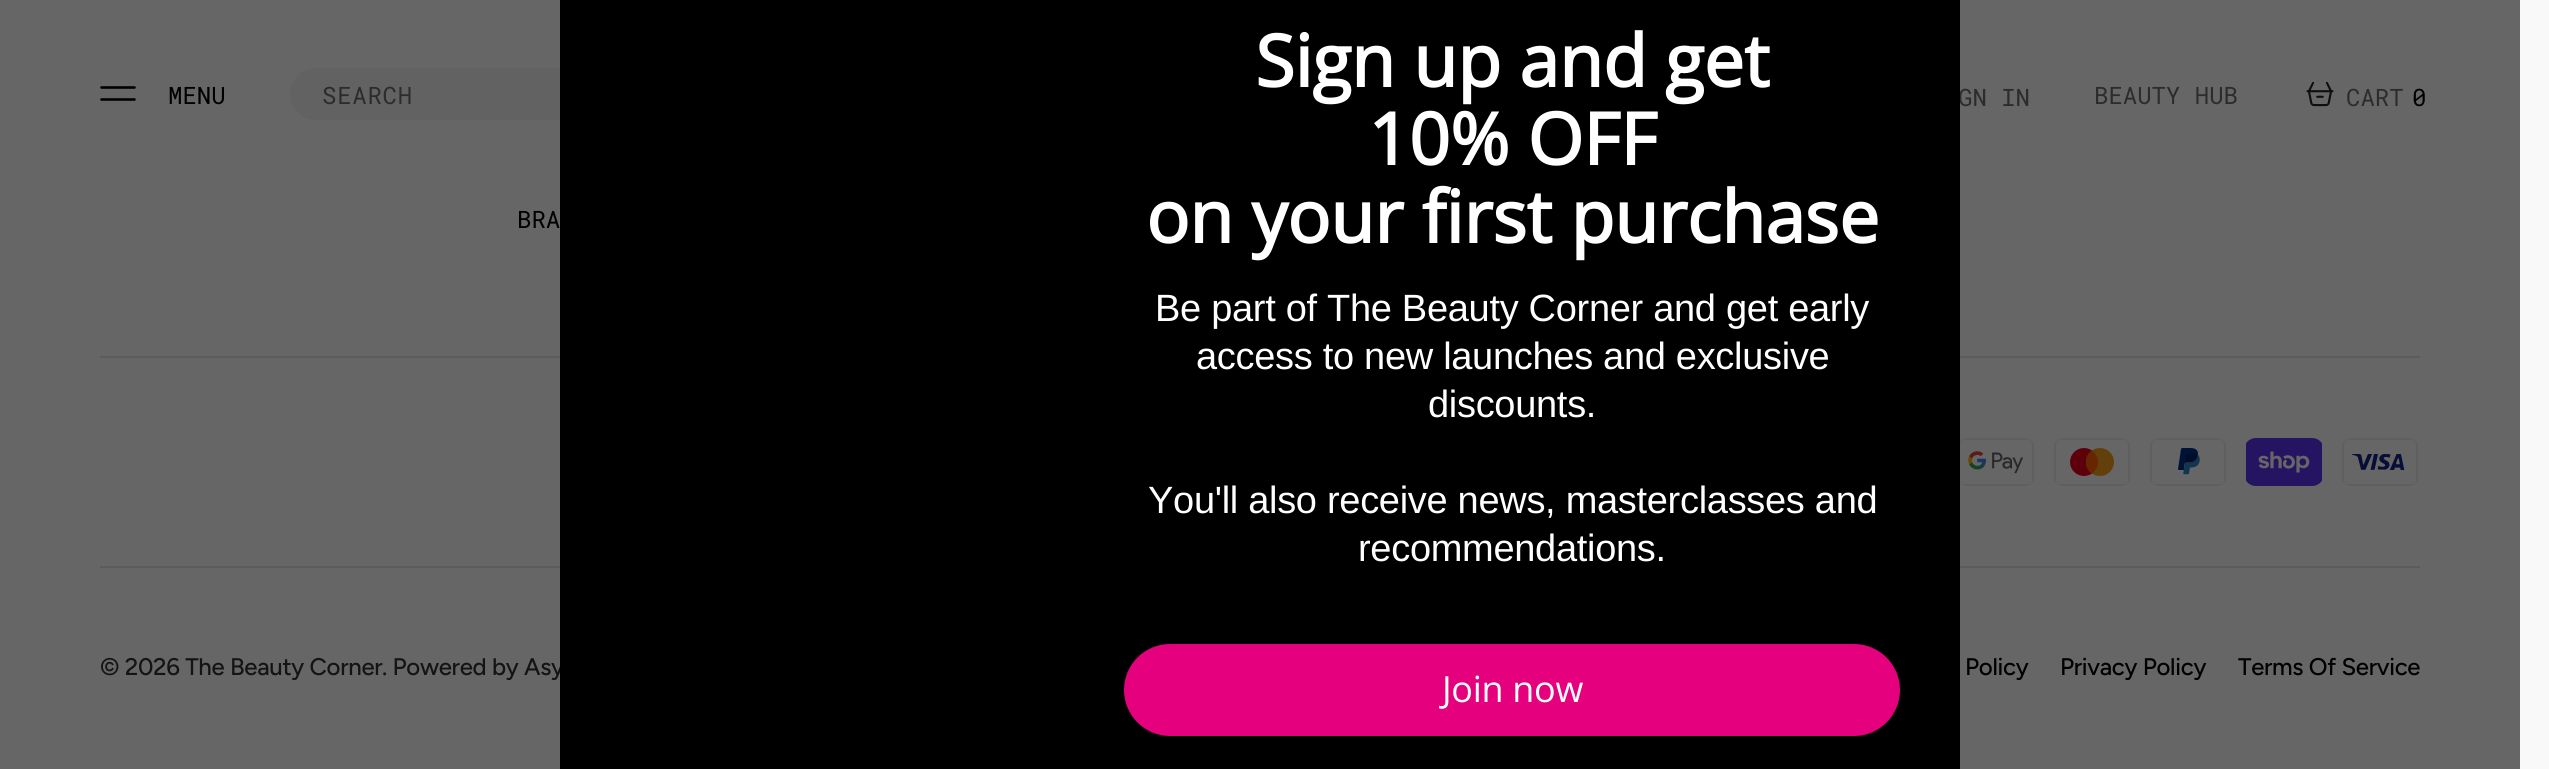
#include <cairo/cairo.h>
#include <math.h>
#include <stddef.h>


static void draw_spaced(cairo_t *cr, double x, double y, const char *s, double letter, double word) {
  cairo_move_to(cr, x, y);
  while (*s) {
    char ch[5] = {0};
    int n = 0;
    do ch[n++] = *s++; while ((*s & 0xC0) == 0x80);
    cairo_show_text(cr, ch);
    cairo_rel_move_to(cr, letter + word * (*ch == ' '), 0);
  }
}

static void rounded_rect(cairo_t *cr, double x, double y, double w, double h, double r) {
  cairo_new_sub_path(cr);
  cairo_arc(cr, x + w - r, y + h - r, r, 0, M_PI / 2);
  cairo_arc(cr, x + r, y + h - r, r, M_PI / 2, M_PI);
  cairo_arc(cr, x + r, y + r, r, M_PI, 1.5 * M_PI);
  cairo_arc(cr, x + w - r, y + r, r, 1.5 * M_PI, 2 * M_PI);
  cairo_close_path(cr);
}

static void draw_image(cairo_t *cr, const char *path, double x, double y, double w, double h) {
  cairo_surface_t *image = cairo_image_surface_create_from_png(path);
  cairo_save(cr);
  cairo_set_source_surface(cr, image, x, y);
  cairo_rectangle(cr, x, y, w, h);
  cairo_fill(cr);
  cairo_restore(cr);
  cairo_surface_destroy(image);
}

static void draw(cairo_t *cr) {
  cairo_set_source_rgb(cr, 249 / 255.0, 249 / 255.0, 249 / 255.0);
  cairo_paint(cr);
  cairo_set_source_rgb(cr, 102 / 255.0, 102 / 255.0, 102 / 255.0);
  cairo_rectangle(cr, 0, 0, 2520, 769);
  cairo_fill(cr);
  cairo_new_path(cr);
  cairo_move_to(cr, 101.5, 87.5);
  cairo_line_to(cr, 134.5, 87.5);
  cairo_move_to(cr, 101.5, 99.5);
  cairo_line_to(cr, 134.5, 99.5);
  cairo_set_source_rgb(cr, 0, 0, 0);
  cairo_set_line_width(cr, 2.6);
  cairo_set_line_cap(cr, CAIRO_LINE_CAP_ROUND);
  cairo_stroke(cr);
  cairo_set_source_rgb(cr, 98 / 255.0, 98 / 255.0, 98 / 255.0);
  rounded_rect(cr, 290, 68, 382, 52, 26);
  cairo_fill(cr);
  draw_image(cr, "images/1.png", 2306, 81, 28, 26);
  cairo_set_source_rgb(cr, 92 / 255.0, 92 / 255.0, 92 / 255.0);
  cairo_rectangle(cr, 100, 356, 2320, 2);
  cairo_fill(cr);
  draw_image(cr, "images/2.png", 1960, 438, 74, 48);
  draw_image(cr, "images/3.png", 2054, 438, 76, 48);
  draw_image(cr, "images/4.png", 2150, 438, 76, 48);
  draw_image(cr, "images/5.png", 2246, 438, 76, 48);
  draw_image(cr, "images/6.png", 2342, 438, 76, 48);
  cairo_rectangle(cr, 100, 566, 2320, 2);
  cairo_fill(cr);
  cairo_select_font_face(cr, "Roboto Mono", CAIRO_FONT_SLANT_NORMAL, CAIRO_FONT_WEIGHT_NORMAL);
  cairo_set_font_size(cr, 24);
  cairo_set_source_rgb(cr, 0, 0, 0);
  cairo_move_to(cr, 168, 104);
  cairo_show_text(cr, "MENU");
  cairo_set_source_rgb(cr, 44 / 255.0, 44 / 255.0, 44 / 255.0);
  draw_spaced(cr, 322, 104, "SEARCH", 0.75, 0);
  cairo_move_to(cr, 1958, 106);
  cairo_show_text(cr, "GN IN");
  cairo_move_to(cr, 2094, 104);
  cairo_show_text(cr, "BEAUTY HUB");
  cairo_move_to(cr, 2346, 106);
  cairo_show_text(cr, "CART");
  cairo_set_source_rgb(cr, 0, 0, 0);
  cairo_move_to(cr, 2412, 106);
  cairo_show_text(cr, "0");
  cairo_move_to(cr, 517, 228);
  cairo_show_text(cr, "BRA");
  cairo_select_font_face(cr, "Figtree Medium", CAIRO_FONT_SLANT_NORMAL, CAIRO_FONT_WEIGHT_NORMAL);
  cairo_set_source_rgb(cr, 20 / 255.0, 20 / 255.0, 20 / 255.0);
  draw_spaced(cr, 100, 675, "© 2026 The Beauty Corner", -0.3, 0);
  draw_spaced(cr, 382, 675, ". Powered by Asy", -0.3, 0);
  cairo_set_source_rgb(cr, 0, 0, 0);
  cairo_rectangle(cr, 560, 0, 1400, 769);
  cairo_fill(cr);
  cairo_set_source_rgb(cr, 229 / 255.0, 0, 126 / 255.0);
  rounded_rect(cr, 1126, 646, 772, 88, 44);
  cairo_fill_preserve(cr);
  cairo_set_line_width(cr, 4);
  cairo_set_line_cap(cr, CAIRO_LINE_CAP_BUTT);
  cairo_stroke(cr);
  cairo_select_font_face(cr, "Open Sans", CAIRO_FONT_SLANT_NORMAL, CAIRO_FONT_WEIGHT_NORMAL);
  cairo_set_font_size(cr, 36);
  cairo_set_source_rgb(cr, 1, 1, 1);
  draw_spaced(cr, 1442, 702, "Join now", -0.3, 0);
  cairo_select_font_face(cr, "Liberation Sans", CAIRO_FONT_SLANT_NORMAL, CAIRO_FONT_WEIGHT_NORMAL);
  cairo_set_font_size(cr, 38);
  draw_spaced(cr, 1358, 561, "recommendations.", -0.3, 0);
  draw_spaced(cr, 1148, 513, "You'll also receive news, masterclasses and", -0.3, 0);
  draw_spaced(cr, 1428, 417, "discounts.", -0.3, 0);
  draw_spaced(cr, 1196, 369, "access to new launches and exclusive", -0.3, 0);
  draw_spaced(cr, 1155, 321, "Be part of The Beauty Corner and get early", -0.3, 0);
  cairo_select_font_face(cr, "Open Sans", CAIRO_FONT_SLANT_NORMAL, CAIRO_FONT_WEIGHT_BOLD);
  cairo_set_font_size(cr, 72);
  draw_spaced(cr, 1146, 243, "on your first purchase", -0.3, 0);
  draw_spaced(cr, 1368, 165, "10% OFF", -0.3, 0);
  draw_spaced(cr, 1255, 87, "Sign up and get", -0.3, 0);
  cairo_select_font_face(cr, "Figtree Medium", CAIRO_FONT_SLANT_NORMAL, CAIRO_FONT_WEIGHT_NORMAL);
  cairo_set_font_size(cr, 24);
  cairo_set_source_rgb(cr, 0, 0, 0);
  draw_spaced(cr, 1965, 675, "Policy", -0.3, 0);
  draw_spaced(cr, 2060, 675, "Privacy Policy", -0.3, 0);
  draw_spaced(cr, 2238, 675, "Terms Of Service", -0.3, 0);
}

int main(void) {
  cairo_surface_t *surface = cairo_image_surface_create(CAIRO_FORMAT_RGB24, 2549, 769);
  cairo_t *cr = cairo_create(surface);
  cairo_font_options_t *options = cairo_font_options_create();
  cairo_font_options_set_hint_metrics(options, CAIRO_HINT_METRICS_OFF);
  cairo_font_options_set_hint_style(options, CAIRO_HINT_STYLE_NONE);
  cairo_set_font_options(cr, options);
  cairo_set_miter_limit(cr, 4);
  draw(cr);
  cairo_surface_write_to_png(surface, "out.png");
  cairo_font_options_destroy(options);
  cairo_destroy(cr);
  cairo_surface_destroy(surface);
  return 0;
}
